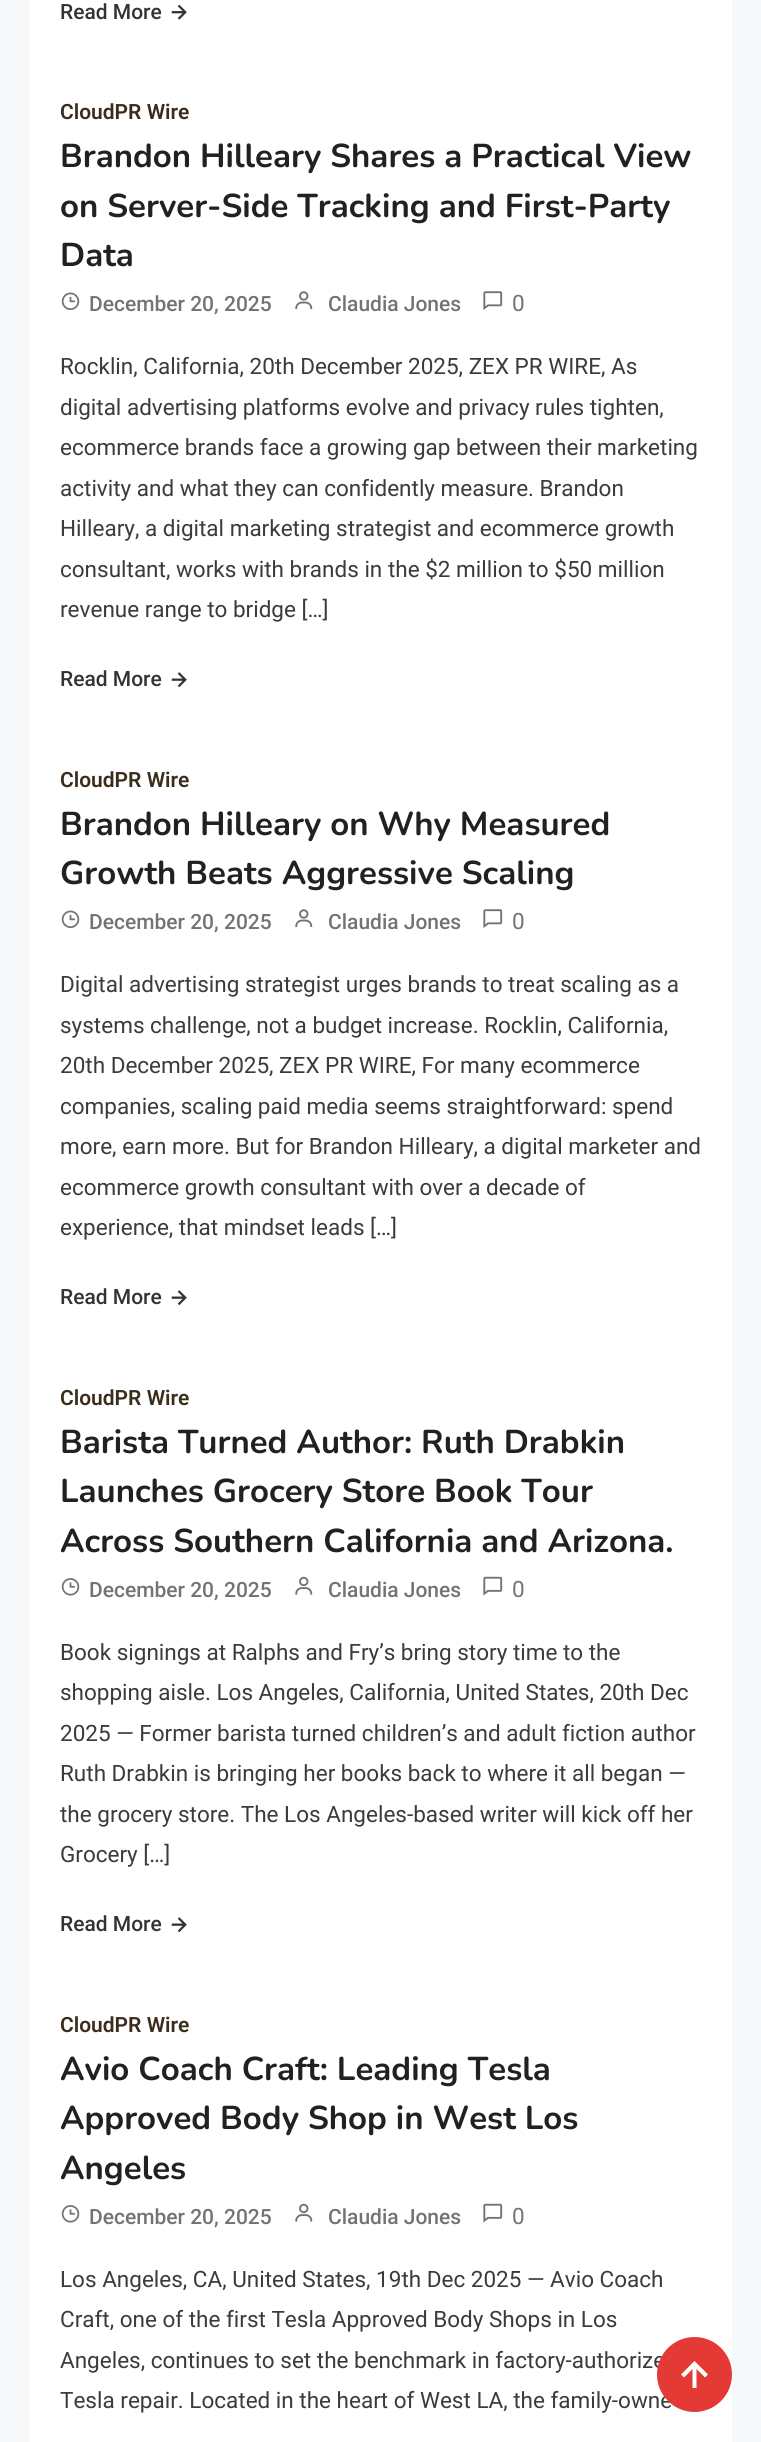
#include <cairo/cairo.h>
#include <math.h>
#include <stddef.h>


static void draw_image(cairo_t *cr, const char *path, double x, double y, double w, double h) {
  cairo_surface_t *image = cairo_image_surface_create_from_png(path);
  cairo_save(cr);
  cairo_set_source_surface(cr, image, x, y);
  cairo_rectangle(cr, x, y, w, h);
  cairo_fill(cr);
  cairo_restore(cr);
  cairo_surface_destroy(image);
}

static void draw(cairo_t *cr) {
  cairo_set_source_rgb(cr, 247 / 255.0, 248 / 255.0, 249 / 255.0);
  cairo_paint(cr);
  cairo_set_source_rgb(cr, 1, 1, 1);
  cairo_rectangle(cr, 30, 0, 702, 2442);
  cairo_fill(cr);
  draw_image(cr, "images/1.png", 171, 4, 16, 16);
  draw_image(cr, "images/2.png", 61, 292, 19, 19);
  draw_image(cr, "images/3.png", 295, 291, 18, 19);
  draw_image(cr, "images/4.png", 483, 291, 20, 19);
  draw_image(cr, "images/5.png", 171, 672, 16, 16);
  draw_image(cr, "images/2.png", 61, 910, 19, 19);
  draw_image(cr, "images/3.png", 295, 909, 18, 19);
  draw_image(cr, "images/4.png", 483, 909, 20, 19);
  draw_image(cr, "images/5.png", 171, 1290, 16, 16);
  draw_image(cr, "images/6.png", 61, 1578, 19, 18);
  draw_image(cr, "images/7.png", 295, 1576, 18, 19);
  draw_image(cr, "images/8.png", 483, 1576, 20, 20);
  draw_image(cr, "images/5.png", 171, 1917, 16, 16);
  draw_image(cr, "images/6.png", 61, 2205, 19, 18);
  draw_image(cr, "images/7.png", 295, 2203, 18, 19);
  draw_image(cr, "images/8.png", 483, 2203, 20, 20);
  cairo_select_font_face(cr, "Roboto Medium", CAIRO_FONT_SLANT_NORMAL, CAIRO_FONT_WEIGHT_NORMAL);
  cairo_set_font_size(cr, 21);
  cairo_set_source_rgb(cr, 51 / 255.0, 51 / 255.0, 51 / 255.0);
  cairo_move_to(cr, 60, 19);
  cairo_show_text(cr, "Read More");
  cairo_select_font_face(cr, "Roboto SemiBold", CAIRO_FONT_SLANT_NORMAL, CAIRO_FONT_WEIGHT_NORMAL);
  cairo_set_source_rgb(cr, 59 / 255.0, 45 / 255.0, 27 / 255.0);
  cairo_move_to(cr, 60, 119);
  cairo_show_text(cr, "CloudPR Wire");
  cairo_select_font_face(cr, "Nunito", CAIRO_FONT_SLANT_NORMAL, CAIRO_FONT_WEIGHT_BOLD);
  cairo_set_font_size(cr, 33);
  cairo_set_source_rgb(cr, 33 / 255.0, 33 / 255.0, 33 / 255.0);
  cairo_move_to(cr, 60, 167);
  cairo_show_text(cr, "Brandon Hilleary Shares a Practical View");
  cairo_move_to(cr, 60, 217);
  cairo_show_text(cr, "on Server-Side Tracking and First-Party");
  cairo_move_to(cr, 60, 266);
  cairo_show_text(cr, "Data");
  cairo_select_font_face(cr, "Roboto Medium", CAIRO_FONT_SLANT_NORMAL, CAIRO_FONT_WEIGHT_NORMAL);
  cairo_set_font_size(cr, 21);
  cairo_set_source_rgb(cr, 115 / 255.0, 115 / 255.0, 115 / 255.0);
  cairo_move_to(cr, 89, 311);
  cairo_show_text(cr, "December 20, 2025");
  cairo_move_to(cr, 328, 311);
  cairo_show_text(cr, "Claudia Jones");
  cairo_select_font_face(cr, "Roboto", CAIRO_FONT_SLANT_NORMAL, CAIRO_FONT_WEIGHT_NORMAL);
  cairo_set_font_size(cr, 22.5);
  cairo_move_to(cr, 512, 311);
  cairo_show_text(cr, "0");
  cairo_set_source_rgb(cr, 59 / 255.0, 59 / 255.0, 59 / 255.0);
  cairo_move_to(cr, 60, 374);
  cairo_show_text(cr, "Rocklin, California, 20th December 2025, ZEX PR WIRE, As");
  cairo_move_to(cr, 60, 415);
  cairo_show_text(cr, "digital advertising platforms evolve and privacy rules tighten,");
  cairo_move_to(cr, 60, 455);
  cairo_show_text(cr, "ecommerce brands face a growing gap between their marketing");
  cairo_move_to(cr, 60, 496);
  cairo_show_text(cr, "activity and what they can confidently measure. Brandon");
  cairo_move_to(cr, 60, 536);
  cairo_show_text(cr, "Hilleary, a digital marketing strategist and ecommerce growth");
  cairo_move_to(cr, 60, 577);
  cairo_show_text(cr, "consultant, works with brands in the $2 million to $50 million");
  cairo_move_to(cr, 60, 617);
  cairo_show_text(cr, "revenue range to bridge […]");
  cairo_select_font_face(cr, "Roboto Medium", CAIRO_FONT_SLANT_NORMAL, CAIRO_FONT_WEIGHT_NORMAL);
  cairo_set_font_size(cr, 21);
  cairo_set_source_rgb(cr, 51 / 255.0, 51 / 255.0, 51 / 255.0);
  cairo_move_to(cr, 60, 686);
  cairo_show_text(cr, "Read More");
  cairo_select_font_face(cr, "Roboto SemiBold", CAIRO_FONT_SLANT_NORMAL, CAIRO_FONT_WEIGHT_NORMAL);
  cairo_set_source_rgb(cr, 59 / 255.0, 45 / 255.0, 27 / 255.0);
  cairo_move_to(cr, 60, 787);
  cairo_show_text(cr, "CloudPR Wire");
  cairo_select_font_face(cr, "Nunito", CAIRO_FONT_SLANT_NORMAL, CAIRO_FONT_WEIGHT_BOLD);
  cairo_set_font_size(cr, 33);
  cairo_set_source_rgb(cr, 33 / 255.0, 33 / 255.0, 33 / 255.0);
  cairo_move_to(cr, 60, 835);
  cairo_show_text(cr, "Brandon Hilleary on Why Measured");
  cairo_move_to(cr, 60, 884);
  cairo_show_text(cr, "Growth Beats Aggressive Scaling");
  cairo_select_font_face(cr, "Roboto Medium", CAIRO_FONT_SLANT_NORMAL, CAIRO_FONT_WEIGHT_NORMAL);
  cairo_set_font_size(cr, 21);
  cairo_set_source_rgb(cr, 115 / 255.0, 115 / 255.0, 115 / 255.0);
  cairo_move_to(cr, 89, 929);
  cairo_show_text(cr, "December 20, 2025");
  cairo_move_to(cr, 328, 929);
  cairo_show_text(cr, "Claudia Jones");
  cairo_select_font_face(cr, "Roboto", CAIRO_FONT_SLANT_NORMAL, CAIRO_FONT_WEIGHT_NORMAL);
  cairo_set_font_size(cr, 22.5);
  cairo_move_to(cr, 512, 929);
  cairo_show_text(cr, "0");
  cairo_set_source_rgb(cr, 59 / 255.0, 59 / 255.0, 59 / 255.0);
  cairo_move_to(cr, 60, 992);
  cairo_show_text(cr, "Digital advertising strategist urges brands to treat scaling as a");
  cairo_move_to(cr, 60, 1033);
  cairo_show_text(cr, "systems challenge, not a budget increase. Rocklin, California,");
  cairo_move_to(cr, 60, 1073);
  cairo_show_text(cr, "20th December 2025, ZEX PR WIRE, For many ecommerce");
  cairo_move_to(cr, 60, 1114);
  cairo_show_text(cr, "companies, scaling paid media seems straightforward: spend");
  cairo_move_to(cr, 60, 1154);
  cairo_show_text(cr, "more, earn more. But for Brandon Hilleary, a digital marketer and");
  cairo_move_to(cr, 60, 1195);
  cairo_show_text(cr, "ecommerce growth consultant with over a decade of");
  cairo_move_to(cr, 60, 1235);
  cairo_show_text(cr, "experience, that mindset leads […]");
  cairo_select_font_face(cr, "Roboto Medium", CAIRO_FONT_SLANT_NORMAL, CAIRO_FONT_WEIGHT_NORMAL);
  cairo_set_font_size(cr, 21);
  cairo_set_source_rgb(cr, 51 / 255.0, 51 / 255.0, 51 / 255.0);
  cairo_move_to(cr, 60, 1304);
  cairo_show_text(cr, "Read More");
  cairo_select_font_face(cr, "Roboto SemiBold", CAIRO_FONT_SLANT_NORMAL, CAIRO_FONT_WEIGHT_NORMAL);
  cairo_set_source_rgb(cr, 59 / 255.0, 45 / 255.0, 27 / 255.0);
  cairo_move_to(cr, 60, 1405);
  cairo_show_text(cr, "CloudPR Wire");
  cairo_select_font_face(cr, "Nunito", CAIRO_FONT_SLANT_NORMAL, CAIRO_FONT_WEIGHT_BOLD);
  cairo_set_font_size(cr, 33);
  cairo_set_source_rgb(cr, 33 / 255.0, 33 / 255.0, 33 / 255.0);
  cairo_move_to(cr, 60, 1453);
  cairo_show_text(cr, "Barista Turned Author: Ruth Drabkin");
  cairo_move_to(cr, 60, 1502);
  cairo_show_text(cr, "Launches Grocery Store Book Tour");
  cairo_move_to(cr, 60, 1552);
  cairo_show_text(cr, "Across Southern California and Arizona.");
  cairo_select_font_face(cr, "Roboto Medium", CAIRO_FONT_SLANT_NORMAL, CAIRO_FONT_WEIGHT_NORMAL);
  cairo_set_font_size(cr, 21);
  cairo_set_source_rgb(cr, 115 / 255.0, 115 / 255.0, 115 / 255.0);
  cairo_move_to(cr, 89, 1597);
  cairo_show_text(cr, "December 20, 2025");
  cairo_move_to(cr, 328, 1597);
  cairo_show_text(cr, "Claudia Jones");
  cairo_select_font_face(cr, "Roboto", CAIRO_FONT_SLANT_NORMAL, CAIRO_FONT_WEIGHT_NORMAL);
  cairo_set_font_size(cr, 22.5);
  cairo_move_to(cr, 512, 1597);
  cairo_show_text(cr, "0");
  cairo_set_source_rgb(cr, 59 / 255.0, 59 / 255.0, 59 / 255.0);
  cairo_move_to(cr, 60, 1660);
  cairo_show_text(cr, "Book signings at Ralphs and Fry’s bring story time to the");
  cairo_move_to(cr, 60, 1700);
  cairo_show_text(cr, "shopping aisle. Los Angeles, California, United States, 20th Dec");
  cairo_move_to(cr, 60, 1741);
  cairo_show_text(cr, "2025 — Former barista turned children’s and adult fiction author");
  cairo_move_to(cr, 60, 1781);
  cairo_show_text(cr, "Ruth Drabkin is bringing her books back to where it all began —");
  cairo_move_to(cr, 60, 1822);
  cairo_show_text(cr, "the grocery store. The Los Angeles-based writer will kick off her");
  cairo_move_to(cr, 60, 1862);
  cairo_show_text(cr, "Grocery […]");
  cairo_select_font_face(cr, "Roboto Medium", CAIRO_FONT_SLANT_NORMAL, CAIRO_FONT_WEIGHT_NORMAL);
  cairo_set_font_size(cr, 21);
  cairo_set_source_rgb(cr, 51 / 255.0, 51 / 255.0, 51 / 255.0);
  cairo_move_to(cr, 60, 1931);
  cairo_show_text(cr, "Read More");
  cairo_select_font_face(cr, "Roboto SemiBold", CAIRO_FONT_SLANT_NORMAL, CAIRO_FONT_WEIGHT_NORMAL);
  cairo_set_source_rgb(cr, 59 / 255.0, 45 / 255.0, 27 / 255.0);
  cairo_move_to(cr, 60, 2032);
  cairo_show_text(cr, "CloudPR Wire");
  cairo_select_font_face(cr, "Nunito", CAIRO_FONT_SLANT_NORMAL, CAIRO_FONT_WEIGHT_BOLD);
  cairo_set_font_size(cr, 33);
  cairo_set_source_rgb(cr, 33 / 255.0, 33 / 255.0, 33 / 255.0);
  cairo_move_to(cr, 60, 2080);
  cairo_show_text(cr, "Avio Coach Craft: Leading Tesla");
  cairo_move_to(cr, 60, 2129);
  cairo_show_text(cr, "Approved Body Shop in West Los");
  cairo_move_to(cr, 60, 2179);
  cairo_show_text(cr, "Angeles");
  cairo_select_font_face(cr, "Roboto Medium", CAIRO_FONT_SLANT_NORMAL, CAIRO_FONT_WEIGHT_NORMAL);
  cairo_set_font_size(cr, 21);
  cairo_set_source_rgb(cr, 115 / 255.0, 115 / 255.0, 115 / 255.0);
  cairo_move_to(cr, 89, 2224);
  cairo_show_text(cr, "December 20, 2025");
  cairo_move_to(cr, 328, 2224);
  cairo_show_text(cr, "Claudia Jones");
  cairo_select_font_face(cr, "Roboto", CAIRO_FONT_SLANT_NORMAL, CAIRO_FONT_WEIGHT_NORMAL);
  cairo_set_font_size(cr, 22.5);
  cairo_move_to(cr, 512, 2224);
  cairo_show_text(cr, "0");
  cairo_set_source_rgb(cr, 59 / 255.0, 59 / 255.0, 59 / 255.0);
  cairo_move_to(cr, 60, 2287);
  cairo_show_text(cr, "Los Angeles, CA, United States, 19th Dec 2025 — Avio Coach");
  cairo_move_to(cr, 60, 2327);
  cairo_show_text(cr, "Craft, one of the first Tesla Approved Body Shops in Los");
  cairo_move_to(cr, 60, 2368);
  cairo_show_text(cr, "Angeles, continues to set the benchmark in factory-authorize");
  cairo_move_to(cr, 60, 2408);
  cairo_show_text(cr, "Tesla repair. Located in the heart of West LA, the family-owne");
  cairo_set_source_rgb(cr, 229 / 255.0, 57 / 255.0, 53 / 255.0);
  cairo_new_path(cr);
  cairo_arc(cr, 694.5, 2374.5, 37.5, 0, 2 * M_PI);
  cairo_fill(cr);
  cairo_set_source_rgb(cr, 1, 1, 1);
  cairo_new_path(cr);
  cairo_move_to(cr, 692.5, 2369);
  cairo_line_to(cr, 692.5, 2388);
  cairo_line_to(cr, 696.5, 2388);
  cairo_line_to(cr, 696.5, 2369);
  cairo_line_to(cr, 705, 2377.5);
  cairo_line_to(cr, 708, 2374.5);
  cairo_line_to(cr, 694.5, 2361);
  cairo_line_to(cr, 681, 2374.5);
  cairo_line_to(cr, 684, 2377.5);
  cairo_close_path(cr);
  cairo_fill(cr);
}

int main(void) {
  cairo_surface_t *surface = cairo_image_surface_create(CAIRO_FORMAT_RGB24, 761, 2442);
  cairo_t *cr = cairo_create(surface);
  cairo_font_options_t *options = cairo_font_options_create();
  cairo_font_options_set_hint_metrics(options, CAIRO_HINT_METRICS_OFF);
  cairo_font_options_set_hint_style(options, CAIRO_HINT_STYLE_NONE);
  cairo_set_font_options(cr, options);
  cairo_set_miter_limit(cr, 4);
  draw(cr);
  cairo_surface_write_to_png(surface, "out.png");
  cairo_font_options_destroy(options);
  cairo_destroy(cr);
  cairo_surface_destroy(surface);
  return 0;
}
